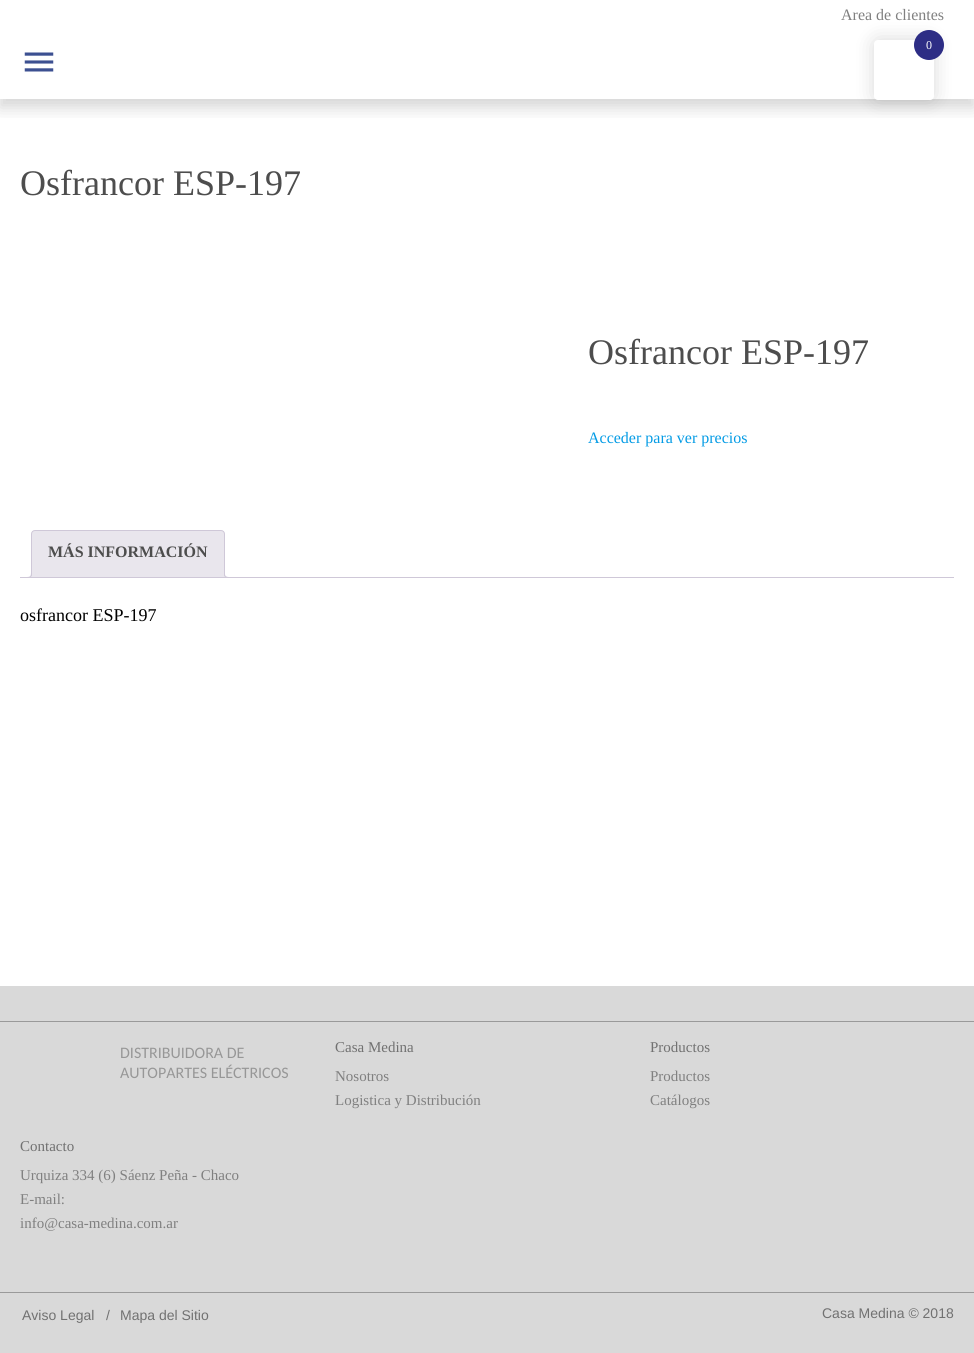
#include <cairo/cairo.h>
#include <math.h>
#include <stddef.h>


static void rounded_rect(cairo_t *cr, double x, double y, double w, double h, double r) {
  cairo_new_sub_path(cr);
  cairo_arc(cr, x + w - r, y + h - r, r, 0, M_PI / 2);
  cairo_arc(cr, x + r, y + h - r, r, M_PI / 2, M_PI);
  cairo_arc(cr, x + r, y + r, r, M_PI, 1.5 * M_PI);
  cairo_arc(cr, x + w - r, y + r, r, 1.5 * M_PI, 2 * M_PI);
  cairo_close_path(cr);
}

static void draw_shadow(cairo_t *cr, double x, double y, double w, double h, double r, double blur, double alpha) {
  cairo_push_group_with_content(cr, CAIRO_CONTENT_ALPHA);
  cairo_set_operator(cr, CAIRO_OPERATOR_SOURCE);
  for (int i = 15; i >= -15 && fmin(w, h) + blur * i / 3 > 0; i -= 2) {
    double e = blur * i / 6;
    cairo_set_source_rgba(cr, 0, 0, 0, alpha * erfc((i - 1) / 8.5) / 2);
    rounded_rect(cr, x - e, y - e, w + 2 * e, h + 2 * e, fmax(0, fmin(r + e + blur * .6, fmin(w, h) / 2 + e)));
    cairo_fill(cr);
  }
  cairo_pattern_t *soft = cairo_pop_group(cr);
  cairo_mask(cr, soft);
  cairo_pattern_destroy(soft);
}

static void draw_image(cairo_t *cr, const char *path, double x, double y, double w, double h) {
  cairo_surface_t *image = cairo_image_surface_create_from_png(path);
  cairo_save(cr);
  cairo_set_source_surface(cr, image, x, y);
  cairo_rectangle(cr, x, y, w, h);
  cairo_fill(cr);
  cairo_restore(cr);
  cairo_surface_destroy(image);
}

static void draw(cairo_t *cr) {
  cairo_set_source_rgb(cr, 1, 1, 1);
  cairo_paint(cr);
  cairo_save(cr);
  cairo_rectangle(cr, 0, 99, 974, 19);
  cairo_clip(cr);
  cairo_set_source_rgb(cr, 50 / 255.0, 50 / 255.0, 50 / 255.0);
  draw_shadow(cr, -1, 7, 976, 101, 0, 8, 0.2);
  cairo_restore(cr);
  draw_image(cr, "images/1.png", 24, 52, 30, 20);
  cairo_set_source_rgb(cr, 0, 0, 0);
  draw_shadow(cr, 874, 40, 60, 60, 4, 10, 0.15);
  cairo_set_source_rgb(cr, 1, 1, 1);
  rounded_rect(cr, 874, 40, 60, 60, 4);
  cairo_fill(cr);
  cairo_set_source_rgb(cr, 45 / 255.0, 45 / 255.0, 133 / 255.0);
  cairo_arc(cr, 929, 45, 15, 0, 2 * M_PI);
  cairo_fill(cr);
  cairo_set_source_rgb(cr, 233 / 255.0, 230 / 255.0, 237 / 255.0);
  cairo_new_path(cr);
  cairo_move_to(cr, 35, 530.5);
  cairo_line_to(cr, 221, 530.5);
  cairo_curve_to(cr, 223, 530.5, 224.5, 532, 224.5, 534);
  cairo_line_to(cr, 224.5, 577.5);
  cairo_line_to(cr, 31.5, 577.5);
  cairo_line_to(cr, 31.5, 534);
  cairo_curve_to(cr, 31.5, 532, 33, 530.5, 35, 530.5);
  cairo_close_path(cr);
  cairo_fill_preserve(cr);
  cairo_set_source_rgb(cr, 207 / 255.0, 200 / 255.0, 216 / 255.0);
  cairo_set_line_width(cr, 1);
  cairo_stroke(cr);
  cairo_save(cr);
  cairo_rectangle(cr, 20, 530, 934, 48);
  cairo_clip(cr);
  cairo_set_source_rgb(cr, 233 / 255.0, 230 / 255.0, 237 / 255.0);
  cairo_new_path(cr);
  cairo_move_to(cr, 29, 578);
  cairo_line_to(cr, 29, 580);
  cairo_curve_to(cr, 32.5, 580, 34, 578.5, 34, 575);
  cairo_line_to(cr, 32, 575);
  cairo_curve_to(cr, 31.5, 576.5, 30.5, 577.5, 29, 578);
  cairo_close_path(cr);
  cairo_fill(cr);
  cairo_restore(cr);
  cairo_set_fill_rule(cr, CAIRO_FILL_RULE_EVEN_ODD);
  cairo_new_path(cr);
  cairo_move_to(cr, 27, 573);
  cairo_line_to(cr, 32, 573);
  cairo_curve_to(cr, 32, 576.5, 30.5, 578, 27, 578);
  cairo_close_path(cr);
  cairo_move_to(cr, 27, 573);
  cairo_line_to(cr, 31, 573);
  cairo_curve_to(cr, 31, 576, 30, 577, 27, 577);
  cairo_close_path(cr);
  cairo_fill(cr);
  cairo_save(cr);
  cairo_set_fill_rule(cr, CAIRO_FILL_RULE_WINDING);
  cairo_rectangle(cr, 20, 530, 934, 48);
  cairo_clip(cr);
  cairo_set_source_rgb(cr, 233 / 255.0, 230 / 255.0, 237 / 255.0);
  cairo_new_path(cr);
  cairo_move_to(cr, 222, 575);
  cairo_curve_to(cr, 222, 578.5, 223.5, 580, 227, 580);
  cairo_line_to(cr, 227, 578);
  cairo_curve_to(cr, 225.5, 577.5, 224.5, 576.5, 224, 575);
  cairo_close_path(cr);
  cairo_fill(cr);
  cairo_restore(cr);
  cairo_new_path(cr);
  cairo_move_to(cr, 224, 573);
  cairo_line_to(cr, 229, 573);
  cairo_line_to(cr, 229, 578);
  cairo_curve_to(cr, 226.5, 578, 224, 577, 224, 574);
  cairo_close_path(cr);
  cairo_move_to(cr, 225, 573);
  cairo_line_to(cr, 229, 573);
  cairo_line_to(cr, 229, 577);
  cairo_curve_to(cr, 227, 577, 225, 576.5, 225, 574);
  cairo_close_path(cr);
  cairo_fill(cr);
  cairo_rectangle(cr, 20, 577, 934, 1);
  cairo_fill(cr);
  cairo_set_source_rgb(cr, 217 / 255.0, 217 / 255.0, 217 / 255.0);
  cairo_rectangle(cr, 0, 986, 974, 367);
  cairo_fill(cr);
  cairo_set_source_rgb(cr, 154 / 255.0, 154 / 255.0, 154 / 255.0);
  cairo_rectangle(cr, 0, 1021, 974, 1);
  cairo_fill(cr);
  cairo_rectangle(cr, 0, 1292, 974, 1);
  cairo_fill(cr);
  cairo_select_font_face(cr, "Liberation Serif", CAIRO_FONT_SLANT_NORMAL, CAIRO_FONT_WEIGHT_NORMAL);
  cairo_set_font_size(cr, 16);
  cairo_set_source_rgb(cr, 128 / 255.0, 128 / 255.0, 128 / 255.0);
  cairo_move_to(cr, 841, 20);
  cairo_show_text(cr, "Area de clientes");
  cairo_set_font_size(cr, 12);
  cairo_set_source_rgb(cr, 1, 1, 1);
  cairo_move_to(cr, 926, 49);
  cairo_show_text(cr, "0");
  cairo_set_font_size(cr, 36);
  cairo_set_source_rgb(cr, 77 / 255.0, 77 / 255.0, 77 / 255.0);
  cairo_move_to(cr, 20, 195);
  cairo_show_text(cr, "Osfrancor ESP-197");
  cairo_move_to(cr, 588, 364);
  cairo_show_text(cr, "Osfrancor ESP-197");
  cairo_set_font_size(cr, 16);
  cairo_set_source_rgb(cr, 3 / 255.0, 155 / 255.0, 229 / 255.0);
  cairo_move_to(cr, 588, 443);
  cairo_show_text(cr, "Acceder para ver precios");
  cairo_select_font_face(cr, "Liberation Serif", CAIRO_FONT_SLANT_NORMAL, CAIRO_FONT_WEIGHT_BOLD);
  cairo_set_source_rgb(cr, 77 / 255.0, 77 / 255.0, 77 / 255.0);
  cairo_move_to(cr, 48, 557);
  cairo_show_text(cr, "MÁS INFORMACIÓN");
  cairo_select_font_face(cr, "Liberation Serif", CAIRO_FONT_SLANT_NORMAL, CAIRO_FONT_WEIGHT_NORMAL);
  cairo_set_font_size(cr, 18);
  cairo_set_source_rgb(cr, 0, 0, 0);
  cairo_move_to(cr, 20, 621);
  cairo_show_text(cr, "osfrancor ESP-197");
  cairo_select_font_face(cr, "Carlito", CAIRO_FONT_SLANT_NORMAL, CAIRO_FONT_WEIGHT_NORMAL);
  cairo_set_font_size(cr, 16);
  cairo_set_source_rgb(cr, 151 / 255.0, 151 / 255.0, 151 / 255.0);
  cairo_move_to(cr, 120, 1058);
  cairo_show_text(cr, "DISTRIBUIDORA DE");
  cairo_move_to(cr, 120, 1078);
  cairo_show_text(cr, "AUTOPARTES ELÉCTRICOS");
  cairo_select_font_face(cr, "Liberation Serif", CAIRO_FONT_SLANT_NORMAL, CAIRO_FONT_WEIGHT_NORMAL);
  cairo_set_font_size(cr, 15);
  cairo_set_source_rgb(cr, 113 / 255.0, 113 / 255.0, 113 / 255.0);
  cairo_move_to(cr, 335, 1052);
  cairo_show_text(cr, "Casa Medina");
  cairo_set_source_rgb(cr, 128 / 255.0, 128 / 255.0, 128 / 255.0);
  cairo_move_to(cr, 335, 1081);
  cairo_show_text(cr, "Nosotros");
  cairo_move_to(cr, 335, 1105);
  cairo_show_text(cr, "Logistica y Distribución");
  cairo_set_source_rgb(cr, 113 / 255.0, 113 / 255.0, 113 / 255.0);
  cairo_move_to(cr, 650, 1052);
  cairo_show_text(cr, "Productos");
  cairo_set_source_rgb(cr, 128 / 255.0, 128 / 255.0, 128 / 255.0);
  cairo_move_to(cr, 650, 1081);
  cairo_show_text(cr, "Productos");
  cairo_move_to(cr, 650, 1105);
  cairo_show_text(cr, "Catálogos");
  cairo_set_source_rgb(cr, 113 / 255.0, 113 / 255.0, 113 / 255.0);
  cairo_move_to(cr, 20, 1151);
  cairo_show_text(cr, "Contacto");
  cairo_set_source_rgb(cr, 128 / 255.0, 128 / 255.0, 128 / 255.0);
  cairo_move_to(cr, 20, 1180);
  cairo_show_text(cr, "Urquiza 334 (6) Sáenz Peña - Chaco");
  cairo_move_to(cr, 20, 1204);
  cairo_show_text(cr, "E-mail:");
  cairo_move_to(cr, 20, 1228);
  cairo_show_text(cr, "info@casa-medina.com.ar");
  cairo_select_font_face(cr, "Liberation Sans", CAIRO_FONT_SLANT_NORMAL, CAIRO_FONT_WEIGHT_NORMAL);
  cairo_set_font_size(cr, 14);
  cairo_set_source_rgb(cr, 113 / 255.0, 113 / 255.0, 113 / 255.0);
  cairo_move_to(cr, 22, 1320);
  cairo_show_text(cr, "Aviso Legal");
  cairo_move_to(cr, 106, 1320);
  cairo_show_text(cr, "/");
  cairo_move_to(cr, 120, 1320);
  cairo_show_text(cr, "Mapa del Sitio");
  cairo_move_to(cr, 822, 1318);
  cairo_show_text(cr, "Casa Medina © 2018");
}

int main(void) {
  cairo_surface_t *surface = cairo_image_surface_create(CAIRO_FORMAT_RGB24, 974, 1353);
  cairo_t *cr = cairo_create(surface);
  cairo_font_options_t *options = cairo_font_options_create();
  cairo_font_options_set_hint_metrics(options, CAIRO_HINT_METRICS_OFF);
  cairo_font_options_set_hint_style(options, CAIRO_HINT_STYLE_NONE);
  cairo_set_font_options(cr, options);
  cairo_set_miter_limit(cr, 4);
  draw(cr);
  cairo_surface_write_to_png(surface, "out.png");
  cairo_font_options_destroy(options);
  cairo_destroy(cr);
  cairo_surface_destroy(surface);
  return 0;
}
